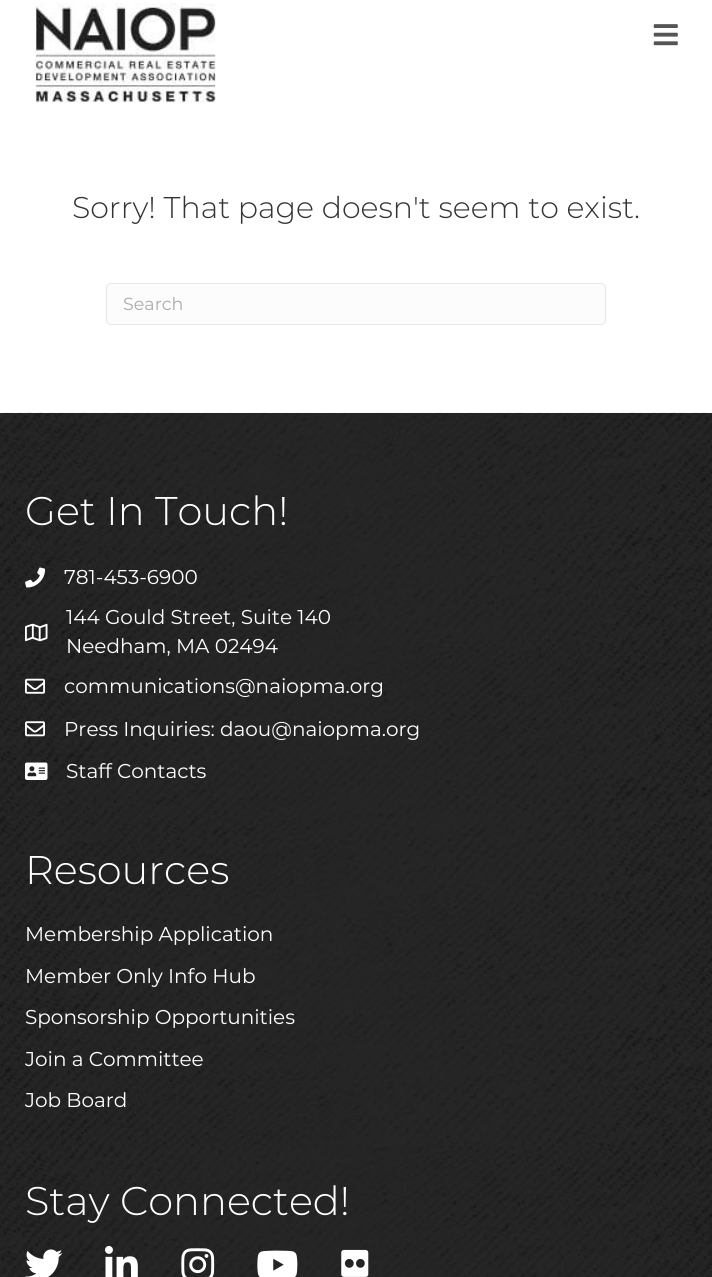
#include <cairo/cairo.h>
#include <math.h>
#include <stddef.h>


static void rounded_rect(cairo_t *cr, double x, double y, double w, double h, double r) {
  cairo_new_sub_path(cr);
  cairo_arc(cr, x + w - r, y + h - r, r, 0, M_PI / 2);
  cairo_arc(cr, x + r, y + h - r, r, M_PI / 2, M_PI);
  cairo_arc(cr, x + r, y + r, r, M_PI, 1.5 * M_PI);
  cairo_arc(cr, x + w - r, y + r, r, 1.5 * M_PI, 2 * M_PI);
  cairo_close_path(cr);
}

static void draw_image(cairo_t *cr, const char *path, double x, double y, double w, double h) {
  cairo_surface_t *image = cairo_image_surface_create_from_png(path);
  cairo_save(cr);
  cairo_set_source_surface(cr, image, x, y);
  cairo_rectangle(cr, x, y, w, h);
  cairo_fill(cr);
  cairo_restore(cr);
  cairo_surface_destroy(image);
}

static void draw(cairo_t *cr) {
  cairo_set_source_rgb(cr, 1, 1, 1);
  cairo_paint(cr);
  draw_image(cr, "images/1.png", 35, 3, 181, 100);
  draw_image(cr, "images/2.png", 653, 24, 25, 22);
  cairo_set_source_rgb(cr, 252 / 255.0, 252 / 255.0, 252 / 255.0);
  rounded_rect(cr, 106.5, 283.5, 499, 41, 4.5);
  cairo_fill_preserve(cr);
  cairo_set_source_rgb(cr, 230 / 255.0, 230 / 255.0, 230 / 255.0);
  cairo_set_line_width(cr, 1);
  cairo_stroke(cr);
  draw_image(cr, "images/3.png", 0, 412, 712, 865);
  draw_image(cr, "images/4.png", 25, 567, 20, 21);
  draw_image(cr, "images/5.png", 25, 623, 23, 19);
  draw_image(cr, "images/6.png", 25, 678, 20, 16);
  draw_image(cr, "images/7.png", 25, 721, 20, 16);
  draw_image(cr, "images/8.png", 25, 762, 23, 18);
  draw_image(cr, "images/9.png", 25, 1249, 38, 28);
  draw_image(cr, "images/10.png", 105, 1245, 33, 32);
  draw_image(cr, "images/11.png", 181, 1248, 34, 29);
  draw_image(cr, "images/12.png", 257, 1250, 41, 27);
  draw_image(cr, "images/13.png", 341, 1249, 28, 28);
  cairo_select_font_face(cr, "Montserrat Light", CAIRO_FONT_SLANT_NORMAL, CAIRO_FONT_WEIGHT_NORMAL);
  cairo_set_font_size(cr, 30);
  cairo_set_source_rgb(cr, 51 / 255.0, 51 / 255.0, 51 / 255.0);
  cairo_move_to(cr, 72, 218);
  cairo_show_text(cr, "Sorry! That page doesn't seem to exist.");
  cairo_select_font_face(cr, "Montserrat", CAIRO_FONT_SLANT_NORMAL, CAIRO_FONT_WEIGHT_NORMAL);
  cairo_set_font_size(cr, 17.5);
  cairo_set_source_rgb(cr, 172 / 255.0, 172 / 255.0, 172 / 255.0);
  cairo_move_to(cr, 123, 310);
  cairo_show_text(cr, "Search");
  cairo_select_font_face(cr, "Montserrat Light", CAIRO_FONT_SLANT_NORMAL, CAIRO_FONT_WEIGHT_NORMAL);
  cairo_set_font_size(cr, 40);
  cairo_set_source_rgb(cr, 1, 1, 1);
  cairo_move_to(cr, 25, 525);
  cairo_show_text(cr, "Get In Touch!");
  cairo_select_font_face(cr, "Montserrat", CAIRO_FONT_SLANT_NORMAL, CAIRO_FONT_WEIGHT_NORMAL);
  cairo_set_font_size(cr, 20);
  cairo_move_to(cr, 64, 584);
  cairo_show_text(cr, "781-453-6900");
  cairo_move_to(cr, 66, 624);
  cairo_show_text(cr, "144 Gould Street, Suite 140");
  cairo_move_to(cr, 66, 653);
  cairo_show_text(cr, "Needham, MA 02494");
  cairo_move_to(cr, 64, 693);
  cairo_show_text(cr, "communications@naiopma.org");
  cairo_move_to(cr, 64, 736);
  cairo_show_text(cr, "Press Inquiries: daou@naiopma.org");
  cairo_move_to(cr, 66, 778);
  cairo_show_text(cr, "Staff Contacts");
  cairo_select_font_face(cr, "Montserrat Light", CAIRO_FONT_SLANT_NORMAL, CAIRO_FONT_WEIGHT_NORMAL);
  cairo_set_font_size(cr, 40);
  cairo_move_to(cr, 25, 884);
  cairo_show_text(cr, "Resources");
  cairo_select_font_face(cr, "Montserrat", CAIRO_FONT_SLANT_NORMAL, CAIRO_FONT_WEIGHT_NORMAL);
  cairo_set_font_size(cr, 20);
  cairo_move_to(cr, 25, 941);
  cairo_show_text(cr, "Membership Application");
  cairo_move_to(cr, 25, 983);
  cairo_show_text(cr, "Member Only Info Hub");
  cairo_move_to(cr, 25, 1024);
  cairo_show_text(cr, "Sponsorship Opportunities");
  cairo_move_to(cr, 25, 1066);
  cairo_show_text(cr, "Join a Committee");
  cairo_move_to(cr, 25, 1107);
  cairo_show_text(cr, "Job Board");
  cairo_select_font_face(cr, "Montserrat Light", CAIRO_FONT_SLANT_NORMAL, CAIRO_FONT_WEIGHT_NORMAL);
  cairo_set_font_size(cr, 40);
  cairo_move_to(cr, 25, 1215);
  cairo_show_text(cr, "Stay Connected!");
}

int main(void) {
  cairo_surface_t *surface = cairo_image_surface_create(CAIRO_FORMAT_RGB24, 712, 1277);
  cairo_t *cr = cairo_create(surface);
  cairo_font_options_t *options = cairo_font_options_create();
  cairo_font_options_set_hint_metrics(options, CAIRO_HINT_METRICS_OFF);
  cairo_font_options_set_hint_style(options, CAIRO_HINT_STYLE_NONE);
  cairo_set_font_options(cr, options);
  cairo_set_miter_limit(cr, 4);
  draw(cr);
  cairo_surface_write_to_png(surface, "out.png");
  cairo_font_options_destroy(options);
  cairo_destroy(cr);
  cairo_surface_destroy(surface);
  return 0;
}
